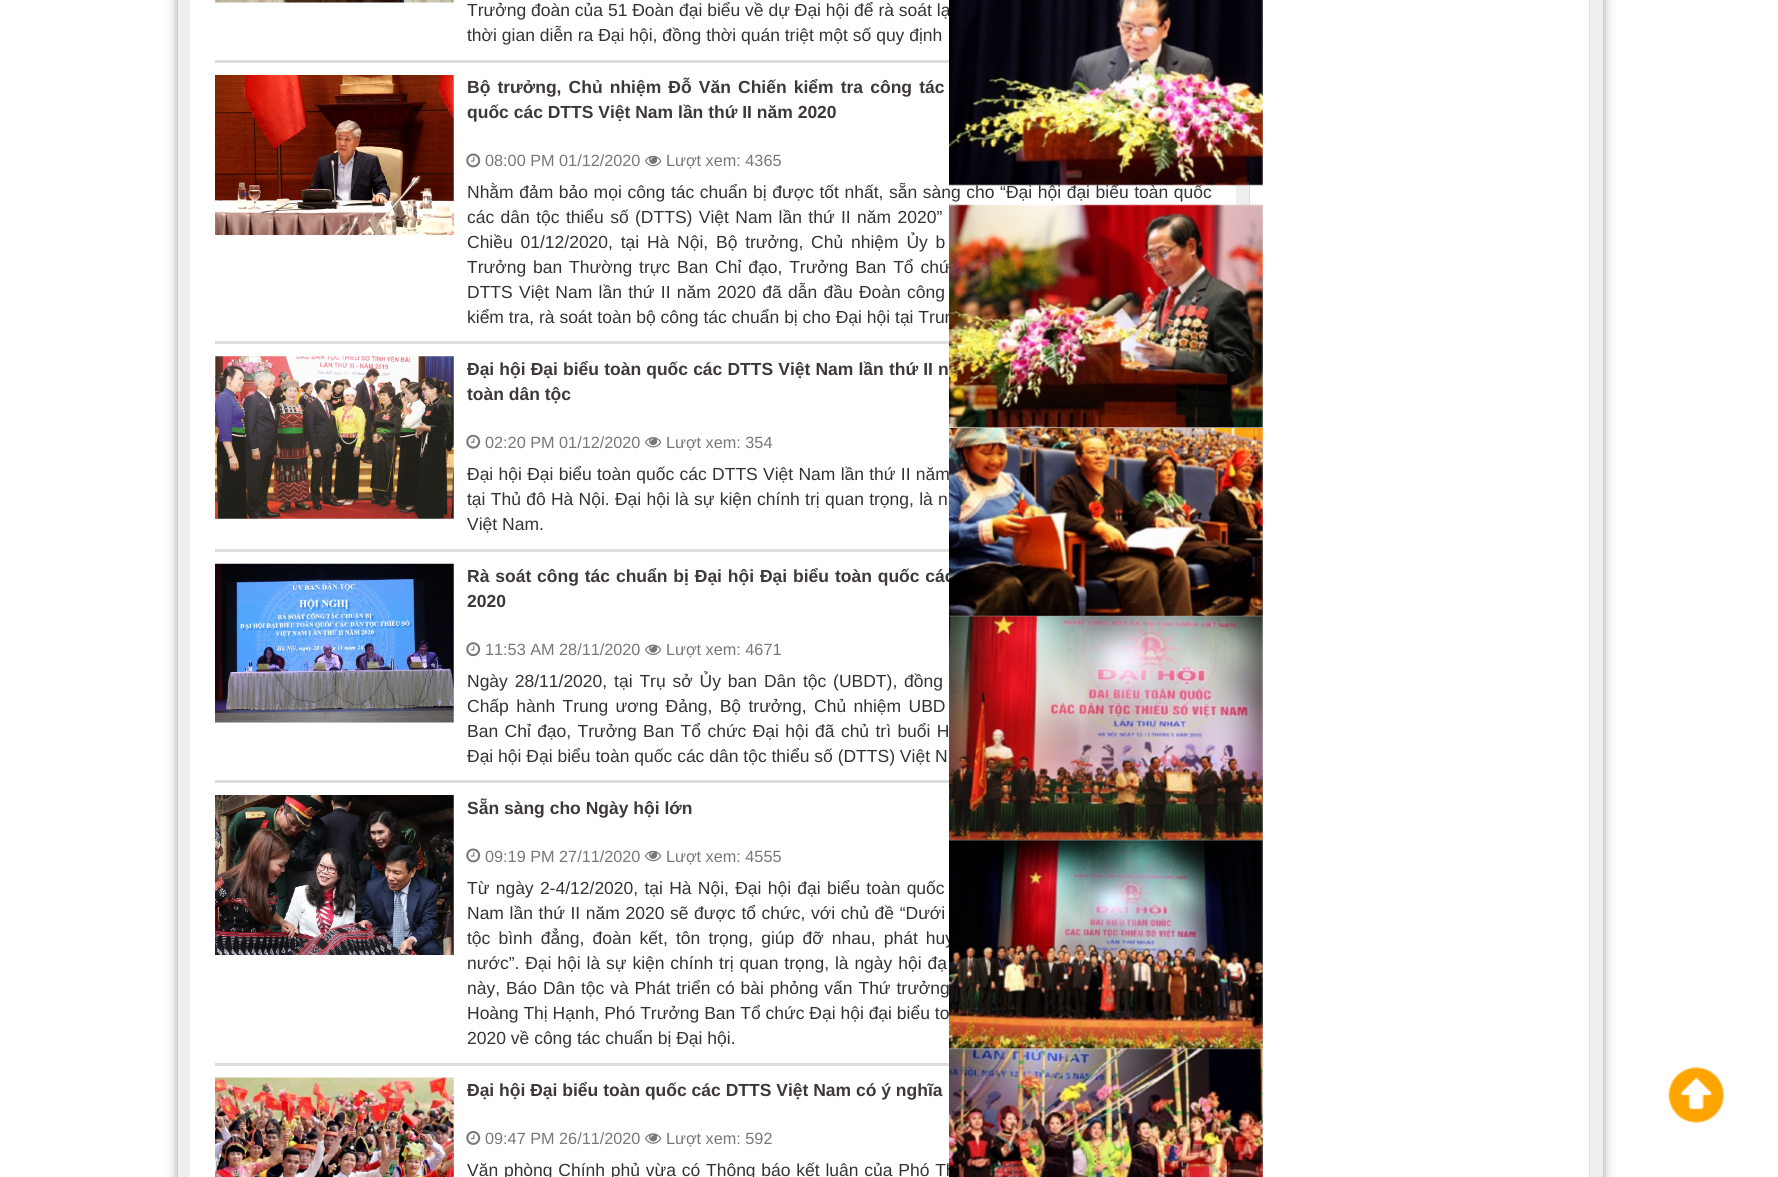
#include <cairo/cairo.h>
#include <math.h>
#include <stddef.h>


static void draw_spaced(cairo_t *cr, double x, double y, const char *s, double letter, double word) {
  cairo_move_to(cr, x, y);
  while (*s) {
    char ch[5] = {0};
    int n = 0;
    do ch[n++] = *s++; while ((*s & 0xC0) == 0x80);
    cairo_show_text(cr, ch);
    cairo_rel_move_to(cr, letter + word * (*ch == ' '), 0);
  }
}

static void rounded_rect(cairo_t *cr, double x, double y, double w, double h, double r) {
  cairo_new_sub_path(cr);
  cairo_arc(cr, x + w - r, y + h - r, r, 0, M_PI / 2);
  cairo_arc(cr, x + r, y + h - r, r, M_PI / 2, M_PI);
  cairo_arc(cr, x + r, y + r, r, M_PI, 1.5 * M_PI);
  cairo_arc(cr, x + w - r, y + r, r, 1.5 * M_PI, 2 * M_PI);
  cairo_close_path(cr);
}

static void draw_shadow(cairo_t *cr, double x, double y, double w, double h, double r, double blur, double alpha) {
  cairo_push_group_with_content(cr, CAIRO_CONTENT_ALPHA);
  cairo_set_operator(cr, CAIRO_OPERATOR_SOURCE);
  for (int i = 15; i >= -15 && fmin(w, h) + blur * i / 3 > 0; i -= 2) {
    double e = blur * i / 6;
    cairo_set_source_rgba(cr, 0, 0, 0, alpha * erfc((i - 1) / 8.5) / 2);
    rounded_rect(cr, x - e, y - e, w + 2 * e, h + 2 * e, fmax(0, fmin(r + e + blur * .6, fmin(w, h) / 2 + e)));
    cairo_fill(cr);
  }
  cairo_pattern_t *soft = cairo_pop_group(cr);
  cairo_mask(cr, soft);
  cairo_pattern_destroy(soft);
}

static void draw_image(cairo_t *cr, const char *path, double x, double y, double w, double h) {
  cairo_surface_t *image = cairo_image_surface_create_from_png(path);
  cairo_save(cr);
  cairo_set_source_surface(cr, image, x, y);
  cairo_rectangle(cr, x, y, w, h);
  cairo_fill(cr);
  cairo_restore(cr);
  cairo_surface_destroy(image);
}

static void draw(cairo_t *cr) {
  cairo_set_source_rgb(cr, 1, 1, 1);
  cairo_paint(cr);
  cairo_set_source_rgb(cr, 165 / 255.0, 151 / 255.0, 151 / 255.0);
  draw_shadow(cr, 178, -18, 1425, 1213, 0, 6, 1);
  cairo_set_source_rgb(cr, 238 / 255.0, 238 / 255.0, 238 / 255.0);
  cairo_rectangle(cr, 178, 0, 1425, 1177);
  cairo_fill(cr);
  cairo_set_source_rgb(cr, 1, 1, 1);
  cairo_rectangle(cr, 190, 0, 1046, 1177);
  cairo_fill(cr);
  draw_image(cr, "images/1.png", 215, 0, 239, 3);
  cairo_set_source_rgb(cr, 221 / 255.0, 221 / 255.0, 221 / 255.0);
  cairo_rectangle(cr, 215, 60, 734, 3);
  cairo_fill(cr);
  draw_image(cr, "images/2.png", 215, 75, 239, 160);
  draw_image(cr, "images/3.png", 466, 153, 15, 15);
  draw_image(cr, "images/4.png", 645, 155, 17, 12);
  cairo_rectangle(cr, 215, 341, 734, 3);
  cairo_fill(cr);
  draw_image(cr, "images/5.png", 215, 356, 239, 163);
  draw_image(cr, "images/6.png", 466, 434, 15, 15);
  draw_image(cr, "images/7.png", 645, 437, 17, 11);
  cairo_rectangle(cr, 215, 549, 734, 3);
  cairo_fill(cr);
  draw_image(cr, "images/8.png", 215, 563, 239, 160);
  draw_image(cr, "images/9.png", 466, 642, 15, 15);
  draw_image(cr, "images/10.png", 645, 644, 17, 11);
  cairo_rectangle(cr, 215, 780, 734, 3);
  cairo_fill(cr);
  draw_image(cr, "images/11.png", 215, 795, 239, 160);
  draw_image(cr, "images/3.png", 466, 848, 15, 15);
  draw_image(cr, "images/4.png", 645, 850, 17, 12);
  cairo_rectangle(cr, 215, 1063, 734, 3);
  cairo_fill(cr);
  draw_image(cr, "images/12.png", 215, 1077, 239, 100);
  draw_image(cr, "images/13.png", 466, 1131, 15, 14);
  draw_image(cr, "images/14.png", 645, 1133, 17, 11);
  cairo_rectangle(cr, 1249.5, -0.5, 340, 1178);
  cairo_set_line_width(cr, 1);
  cairo_stroke(cr);
  cairo_set_source_rgb(cr, 1, 1, 1);
  cairo_rectangle(cr, 1250, 0, 339, 1177);
  cairo_fill(cr);
  draw_image(cr, "images/21.png", 1668, 1067, 56, 56);
  cairo_select_font_face(cr, "Liberation Sans", CAIRO_FONT_SLANT_NORMAL, CAIRO_FONT_WEIGHT_NORMAL);
  cairo_set_font_size(cr, 17.5);
  cairo_set_source_rgb(cr, 51 / 255.0, 51 / 255.0, 51 / 255.0);
  cairo_move_to(cr, 467, 16);
  cairo_show_text(cr, "Trưởng đoàn của 51 Đoàn đại biểu về dự Đại hội để rà soát lạ");
  cairo_move_to(cr, 467, 41);
  cairo_show_text(cr, "thời gian diễn ra Đại hội, đồng thời quán triệt một số quy định");
  cairo_select_font_face(cr, "Liberation Sans", CAIRO_FONT_SLANT_NORMAL, CAIRO_FONT_WEIGHT_BOLD);
  cairo_set_source_rgb(cr, 62 / 255.0, 56 / 255.0, 56 / 255.0);
  draw_spaced(cr, 467, 93, "Bộ trưởng, Chủ nhiệm Đỗ Văn Chiến kiểm tra công tác", 0, 2.25);
  cairo_move_to(cr, 467, 118);
  cairo_show_text(cr, "quốc các DTTS Việt Nam lần thứ II năm 2020");
  cairo_select_font_face(cr, "Liberation Sans", CAIRO_FONT_SLANT_NORMAL, CAIRO_FONT_WEIGHT_NORMAL);
  cairo_set_font_size(cr, 16.25);
  cairo_set_source_rgb(cr, 119 / 255.0, 119 / 255.0, 119 / 255.0);
  cairo_move_to(cr, 485, 166);
  cairo_show_text(cr, "08:00 PM 01/12/2020");
  cairo_move_to(cr, 666, 166);
  cairo_show_text(cr, "Lượt xem: 4365");
  cairo_set_font_size(cr, 17.5);
  cairo_set_source_rgb(cr, 51 / 255.0, 51 / 255.0, 51 / 255.0);
  draw_spaced(cr, 467, 198, "Nhằm đảm bảo mọi công tác chuẩn bị được tốt nhất, sẵn sàng cho “Đại hội đại biểu toàn quốc", 0, 0.7);
  draw_spaced(cr, 467, 223, "các dân tộc thiểu số (DTTS) Việt Nam lần thứ II năm 2020”", 0, 1.5);
  draw_spaced(cr, 467, 248, "Chiều 01/12/2020, tại Hà Nội, Bộ trưởng, Chủ nhiệm Ủy b", 0, 2.9);
  draw_spaced(cr, 467, 273, "Trưởng ban Thường trực Ban Chỉ đạo, Trưởng Ban Tổ chứ", 0, 2);
  draw_spaced(cr, 467, 298, "DTTS Việt Nam lần thứ II năm 2020 đã dẫn đầu Đoàn công", 0, 1.4);
  cairo_move_to(cr, 467, 323);
  cairo_show_text(cr, "kiểm tra, rà soát toàn bộ công tác chuẩn bị cho Đại hội tại Trun");
  cairo_select_font_face(cr, "Liberation Sans", CAIRO_FONT_SLANT_NORMAL, CAIRO_FONT_WEIGHT_BOLD);
  cairo_set_source_rgb(cr, 62 / 255.0, 56 / 255.0, 56 / 255.0);
  draw_spaced(cr, 467, 375, "Đại hội Đại biểu toàn quốc các DTTS Việt Nam lần thứ II n", 0, 0.25);
  cairo_move_to(cr, 467, 400);
  cairo_show_text(cr, "toàn dân tộc");
  cairo_select_font_face(cr, "Liberation Sans", CAIRO_FONT_SLANT_NORMAL, CAIRO_FONT_WEIGHT_NORMAL);
  cairo_set_font_size(cr, 16.25);
  cairo_set_source_rgb(cr, 119 / 255.0, 119 / 255.0, 119 / 255.0);
  cairo_move_to(cr, 485, 448);
  cairo_show_text(cr, "02:20 PM 01/12/2020");
  cairo_move_to(cr, 666, 448);
  cairo_show_text(cr, "Lượt xem: 354");
  cairo_set_font_size(cr, 17.5);
  cairo_set_source_rgb(cr, 51 / 255.0, 51 / 255.0, 51 / 255.0);
  draw_spaced(cr, 467, 480, "Đại hội Đại biểu toàn quốc các DTTS Việt Nam lần thứ II năm", 0, 0.4);
  draw_spaced(cr, 467, 505, "tại Thủ đô Hà Nội. Đại hội là sự kiện chính trị quan trọng, là n", 0, 0.4);
  cairo_move_to(cr, 467, 530);
  cairo_show_text(cr, "Việt Nam.");
  cairo_select_font_face(cr, "Liberation Sans", CAIRO_FONT_SLANT_NORMAL, CAIRO_FONT_WEIGHT_BOLD);
  cairo_set_source_rgb(cr, 62 / 255.0, 56 / 255.0, 56 / 255.0);
  draw_spaced(cr, 467, 582, "Rà soát công tác chuẩn bị Đại hội Đại biểu toàn quốc các", 0, 1);
  cairo_move_to(cr, 467, 607);
  cairo_show_text(cr, "2020");
  cairo_select_font_face(cr, "Liberation Sans", CAIRO_FONT_SLANT_NORMAL, CAIRO_FONT_WEIGHT_NORMAL);
  cairo_set_font_size(cr, 16.25);
  cairo_set_source_rgb(cr, 119 / 255.0, 119 / 255.0, 119 / 255.0);
  cairo_move_to(cr, 485, 655);
  cairo_show_text(cr, "11:53 AM 28/11/2020");
  cairo_move_to(cr, 666, 655);
  cairo_show_text(cr, "Lượt xem: 4671");
  cairo_set_font_size(cr, 17.5);
  cairo_set_source_rgb(cr, 51 / 255.0, 51 / 255.0, 51 / 255.0);
  draw_spaced(cr, 467, 687, "Ngày 28/11/2020, tại Trụ sở Ủy ban Dân tộc (UBDT), đồng", 0, 2);
  draw_spaced(cr, 467, 712, "Chấp hành Trung ương Đảng, Bộ trưởng, Chủ nhiệm UBD", 0, 2.5);
  draw_spaced(cr, 467, 737, "Ban Chỉ đạo, Trưởng Ban Tổ chức Đại hội đã chủ trì buổi H", 0, 1.5);
  cairo_move_to(cr, 467, 762);
  cairo_show_text(cr, "Đại hội Đại biểu toàn quốc các dân tộc thiểu số (DTTS) Việt N");
  cairo_select_font_face(cr, "Liberation Sans", CAIRO_FONT_SLANT_NORMAL, CAIRO_FONT_WEIGHT_BOLD);
  cairo_set_source_rgb(cr, 62 / 255.0, 56 / 255.0, 56 / 255.0);
  cairo_move_to(cr, 467, 814);
  cairo_show_text(cr, "Sẵn sàng cho Ngày hội lớn");
  cairo_select_font_face(cr, "Liberation Sans", CAIRO_FONT_SLANT_NORMAL, CAIRO_FONT_WEIGHT_NORMAL);
  cairo_set_font_size(cr, 16.25);
  cairo_set_source_rgb(cr, 119 / 255.0, 119 / 255.0, 119 / 255.0);
  cairo_move_to(cr, 485, 862);
  cairo_show_text(cr, "09:19 PM 27/11/2020");
  cairo_move_to(cr, 666, 862);
  cairo_show_text(cr, "Lượt xem: 4555");
  cairo_set_font_size(cr, 17.5);
  cairo_set_source_rgb(cr, 51 / 255.0, 51 / 255.0, 51 / 255.0);
  draw_spaced(cr, 467, 894, "Từ ngày 2-4/12/2020, tại Hà Nội, Đại hội đại biểu toàn quốc", 0, 1.4);
  draw_spaced(cr, 467, 919, "Nam lần thứ II năm 2020 sẽ được tổ chức, với chủ đề “Dưới", 0, 0.75);
  draw_spaced(cr, 467, 944, "tộc bình đẳng, đoàn kết, tôn trọng, giúp đỡ nhau, phát huy", 0, 3.25);
  draw_spaced(cr, 467, 969, "nước”. Đại hội là sự kiện chính trị quan trọng, là ngày hội đạ", 0, 1);
  draw_spaced(cr, 467, 994, "này, Báo Dân tộc và Phát triển có bài phỏng vấn Thứ trưởng", 0, 1);
  cairo_move_to(cr, 467, 1019);
  cairo_show_text(cr, "Hoàng Thị Hạnh, Phó Trưởng Ban Tổ chức Đại hội đại biểu to");
  cairo_move_to(cr, 467, 1044);
  cairo_show_text(cr, "2020 về công tác chuẩn bị Đại hội.");
  cairo_select_font_face(cr, "Liberation Sans", CAIRO_FONT_SLANT_NORMAL, CAIRO_FONT_WEIGHT_BOLD);
  cairo_set_source_rgb(cr, 62 / 255.0, 56 / 255.0, 56 / 255.0);
  cairo_move_to(cr, 467, 1096);
  cairo_show_text(cr, "Đại hội Đại biểu toàn quốc các DTTS Việt Nam có ý nghĩa");
  cairo_select_font_face(cr, "Liberation Sans", CAIRO_FONT_SLANT_NORMAL, CAIRO_FONT_WEIGHT_NORMAL);
  cairo_set_font_size(cr, 16.25);
  cairo_set_source_rgb(cr, 119 / 255.0, 119 / 255.0, 119 / 255.0);
  cairo_move_to(cr, 485, 1144);
  cairo_show_text(cr, "09:47 PM 26/11/2020");
  cairo_move_to(cr, 666, 1144);
  cairo_show_text(cr, "Lượt xem: 592");
  cairo_set_font_size(cr, 17.5);
  cairo_set_source_rgb(cr, 51 / 255.0, 51 / 255.0, 51 / 255.0);
  draw_spaced(cr, 467, 1176, "Văn phòng Chính phủ vừa có Thông báo kết luận của Phó Th", 0, 0.9);
  draw_image(cr, "images/15.png", 949, 0, 314, 186);
  draw_image(cr, "images/16.png", 949, 204, 314, 225);
  draw_image(cr, "images/17.png", 949, 428, 314, 189);
  draw_image(cr, "images/18.png", 949, 616, 314, 225);
  draw_image(cr, "images/19.png", 949, 839, 314, 211);
  draw_image(cr, "images/20.png", 949, 1048, 314, 129);
}

int main(void) {
  cairo_surface_t *surface = cairo_image_surface_create(CAIRO_FORMAT_RGB24, 1778, 1177);
  cairo_t *cr = cairo_create(surface);
  cairo_font_options_t *options = cairo_font_options_create();
  cairo_font_options_set_hint_metrics(options, CAIRO_HINT_METRICS_OFF);
  cairo_font_options_set_hint_style(options, CAIRO_HINT_STYLE_NONE);
  cairo_set_font_options(cr, options);
  cairo_set_miter_limit(cr, 4);
  draw(cr);
  cairo_surface_write_to_png(surface, "out.png");
  cairo_font_options_destroy(options);
  cairo_destroy(cr);
  cairo_surface_destroy(surface);
  return 0;
}
